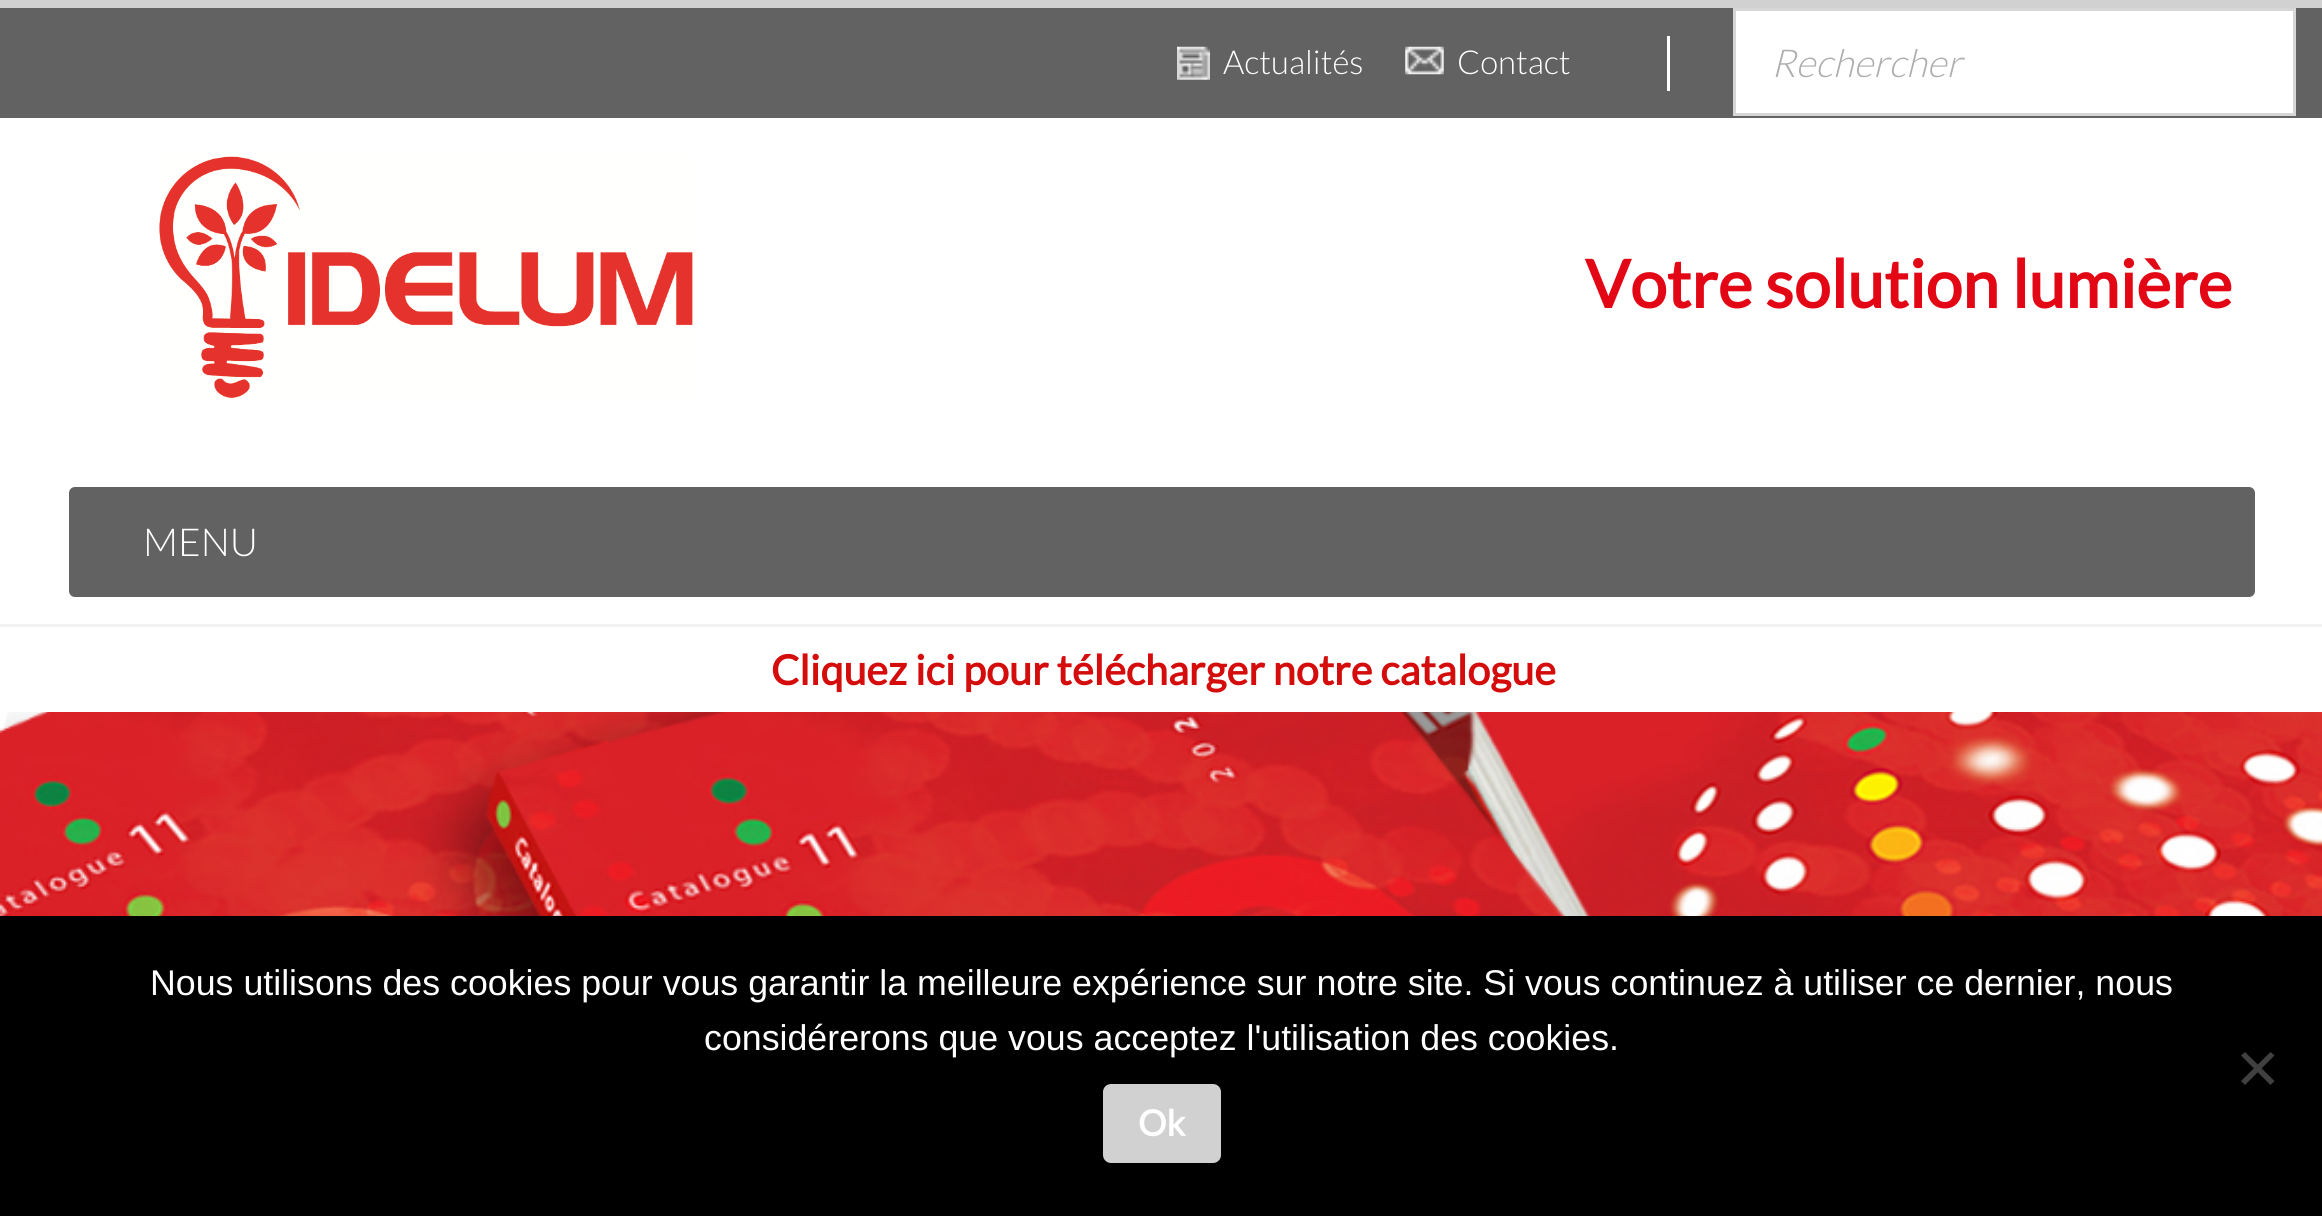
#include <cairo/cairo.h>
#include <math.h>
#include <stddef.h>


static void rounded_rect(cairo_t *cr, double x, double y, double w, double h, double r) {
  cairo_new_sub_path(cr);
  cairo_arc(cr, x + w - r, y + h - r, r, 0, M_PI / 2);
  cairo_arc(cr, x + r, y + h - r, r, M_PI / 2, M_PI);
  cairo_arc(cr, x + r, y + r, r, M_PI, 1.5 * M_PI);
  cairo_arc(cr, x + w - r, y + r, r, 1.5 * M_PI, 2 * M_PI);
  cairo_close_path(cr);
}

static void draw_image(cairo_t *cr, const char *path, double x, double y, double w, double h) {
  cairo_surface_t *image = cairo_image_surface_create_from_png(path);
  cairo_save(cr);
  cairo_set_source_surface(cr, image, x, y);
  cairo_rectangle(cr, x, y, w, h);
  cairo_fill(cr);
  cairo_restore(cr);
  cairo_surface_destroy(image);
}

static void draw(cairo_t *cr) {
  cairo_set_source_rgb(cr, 1, 1, 1);
  cairo_paint(cr);
  cairo_set_source_rgb(cr, 209 / 255.0, 209 / 255.0, 209 / 255.0);
  cairo_rectangle(cr, 0, 0, 2322, 8);
  cairo_fill(cr);
  cairo_set_source_rgb(cr, 242 / 255.0, 242 / 255.0, 242 / 255.0);
  cairo_rectangle(cr, 0, 624, 2322, 3);
  cairo_fill(cr);
  cairo_set_source_rgb(cr, 98 / 255.0, 98 / 255.0, 98 / 255.0);
  cairo_rectangle(cr, 0, 8, 2322, 110);
  cairo_fill(cr);
  draw_image(cr, "images/1.png", 1177, 46, 33, 34);
  draw_image(cr, "images/2.png", 1405, 46, 39, 29);
  cairo_set_source_rgb(cr, 1, 1, 1);
  cairo_rectangle(cr, 1667, 36, 3, 55);
  cairo_fill(cr);
  cairo_rectangle(cr, 1734.5, 9.5, 560, 105);
  cairo_fill_preserve(cr);
  cairo_set_source_rgb(cr, 214 / 255.0, 214 / 255.0, 214 / 255.0);
  cairo_set_line_width(cr, 3);
  cairo_stroke(cr);
  draw_image(cr, "images/3.png", 159, 156, 534, 242);
  cairo_set_source_rgb(cr, 98 / 255.0, 98 / 255.0, 98 / 255.0);
  rounded_rect(cr, 69, 487, 2186, 110, 6);
  cairo_fill(cr);
  draw_image(cr, "images/4.png", 0, 627, 2322, 289);
  cairo_set_source_rgb(cr, 1, 1, 1);
  cairo_rectangle(cr, 8, 627, 2314, 85);
  cairo_fill(cr);
  cairo_set_source_rgb(cr, 0, 0, 0);
  cairo_rectangle(cr, 0, 916, 2322, 300);
  cairo_fill(cr);
  cairo_set_source_rgb(cr, 64 / 255.0, 64 / 255.0, 64 / 255.0);
  cairo_new_path(cr);
  cairo_move_to(cr, 2270.5, 1052);
  cairo_line_to(cr, 2274.5, 1055.5);
  cairo_line_to(cr, 2245, 1085);
  cairo_line_to(cr, 2241, 1081);
  cairo_close_path(cr);
  cairo_fill(cr);
  cairo_new_path(cr);
  cairo_move_to(cr, 2241, 1055.5);
  cairo_line_to(cr, 2245, 1052);
  cairo_line_to(cr, 2274.5, 1081);
  cairo_line_to(cr, 2270.5, 1085);
  cairo_close_path(cr);
  cairo_fill(cr);
  cairo_set_source_rgb(cr, 209 / 255.0, 209 / 255.0, 209 / 255.0);
  rounded_rect(cr, 1103, 1084, 118, 79, 8);
  cairo_fill(cr);
  cairo_select_font_face(cr, "Lato Light", CAIRO_FONT_SLANT_NORMAL, CAIRO_FONT_WEIGHT_NORMAL);
  cairo_set_font_size(cr, 33);
  cairo_set_source_rgb(cr, 1, 1, 1);
  cairo_move_to(cr, 1223, 74);
  cairo_show_text(cr, "Actualités");
  cairo_move_to(cr, 1457, 74);
  cairo_show_text(cr, "Contact");
  cairo_select_font_face(cr, "Lato Light", CAIRO_FONT_SLANT_ITALIC, CAIRO_FONT_WEIGHT_NORMAL);
  cairo_set_font_size(cr, 38.5);
  cairo_set_source_rgb(cr, 174 / 255.0, 174 / 255.0, 174 / 255.0);
  cairo_move_to(cr, 1771, 77);
  cairo_show_text(cr, "Rechercher");
  cairo_select_font_face(cr, "Lato", CAIRO_FONT_SLANT_NORMAL, CAIRO_FONT_WEIGHT_BOLD);
  cairo_set_font_size(cr, 66);
  cairo_set_source_rgb(cr, 227 / 255.0, 6 / 255.0, 20 / 255.0);
  cairo_move_to(cr, 1585, 308);
  cairo_show_text(cr, "Votre solution lumière");
  cairo_select_font_face(cr, "Lato Light", CAIRO_FONT_SLANT_NORMAL, CAIRO_FONT_WEIGHT_NORMAL);
  cairo_set_font_size(cr, 38.5);
  cairo_set_source_rgb(cr, 1, 1, 1);
  cairo_move_to(cr, 143, 556);
  cairo_show_text(cr, "MENU");
  cairo_select_font_face(cr, "Lato", CAIRO_FONT_SLANT_NORMAL, CAIRO_FONT_WEIGHT_BOLD);
  cairo_set_font_size(cr, 41.25);
  cairo_set_source_rgb(cr, 212 / 255.0, 12 / 255.0, 12 / 255.0);
  cairo_move_to(cr, 771, 685);
  cairo_show_text(cr, "Cliquez ici pour télécharger notre catalogue");
  cairo_select_font_face(cr, "Liberation Sans", CAIRO_FONT_SLANT_NORMAL, CAIRO_FONT_WEIGHT_NORMAL);
  cairo_set_font_size(cr, 35.75);
  cairo_set_source_rgb(cr, 1, 1, 1);
  cairo_move_to(cr, 150, 995);
  cairo_show_text(cr, "Nous utilisons des cookies pour vous garantir la meilleure expérience sur notre site. Si vous continuez à utiliser ce dernier, nous");
  cairo_move_to(cr, 704, 1050);
  cairo_show_text(cr, "considérerons que vous acceptez l'utilisation des cookies.");
  cairo_select_font_face(cr, "Lato", CAIRO_FONT_SLANT_NORMAL, CAIRO_FONT_WEIGHT_BOLD);
  cairo_move_to(cr, 1138, 1136);
  cairo_show_text(cr, "Ok");
}

int main(void) {
  cairo_surface_t *surface = cairo_image_surface_create(CAIRO_FORMAT_RGB24, 2322, 1216);
  cairo_t *cr = cairo_create(surface);
  cairo_font_options_t *options = cairo_font_options_create();
  cairo_font_options_set_hint_metrics(options, CAIRO_HINT_METRICS_OFF);
  cairo_font_options_set_hint_style(options, CAIRO_HINT_STYLE_NONE);
  cairo_set_font_options(cr, options);
  cairo_set_miter_limit(cr, 4);
  draw(cr);
  cairo_surface_write_to_png(surface, "out.png");
  cairo_font_options_destroy(options);
  cairo_destroy(cr);
  cairo_surface_destroy(surface);
  return 0;
}
